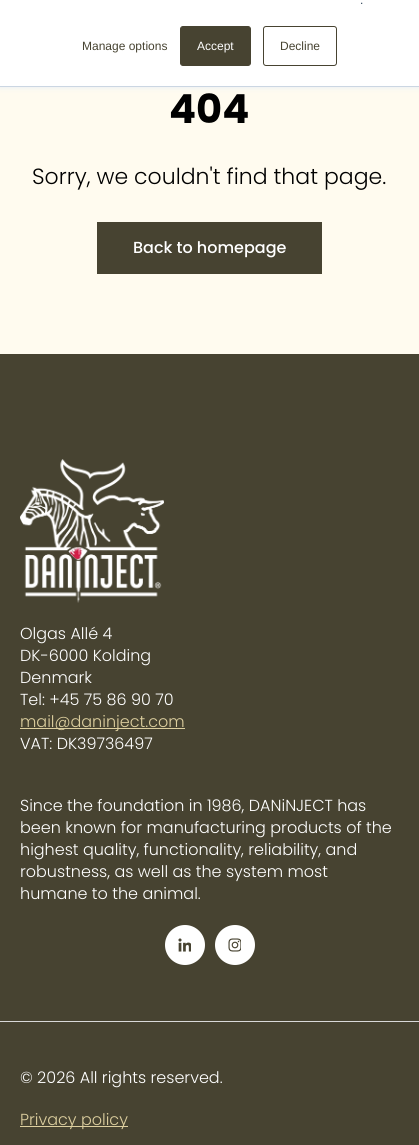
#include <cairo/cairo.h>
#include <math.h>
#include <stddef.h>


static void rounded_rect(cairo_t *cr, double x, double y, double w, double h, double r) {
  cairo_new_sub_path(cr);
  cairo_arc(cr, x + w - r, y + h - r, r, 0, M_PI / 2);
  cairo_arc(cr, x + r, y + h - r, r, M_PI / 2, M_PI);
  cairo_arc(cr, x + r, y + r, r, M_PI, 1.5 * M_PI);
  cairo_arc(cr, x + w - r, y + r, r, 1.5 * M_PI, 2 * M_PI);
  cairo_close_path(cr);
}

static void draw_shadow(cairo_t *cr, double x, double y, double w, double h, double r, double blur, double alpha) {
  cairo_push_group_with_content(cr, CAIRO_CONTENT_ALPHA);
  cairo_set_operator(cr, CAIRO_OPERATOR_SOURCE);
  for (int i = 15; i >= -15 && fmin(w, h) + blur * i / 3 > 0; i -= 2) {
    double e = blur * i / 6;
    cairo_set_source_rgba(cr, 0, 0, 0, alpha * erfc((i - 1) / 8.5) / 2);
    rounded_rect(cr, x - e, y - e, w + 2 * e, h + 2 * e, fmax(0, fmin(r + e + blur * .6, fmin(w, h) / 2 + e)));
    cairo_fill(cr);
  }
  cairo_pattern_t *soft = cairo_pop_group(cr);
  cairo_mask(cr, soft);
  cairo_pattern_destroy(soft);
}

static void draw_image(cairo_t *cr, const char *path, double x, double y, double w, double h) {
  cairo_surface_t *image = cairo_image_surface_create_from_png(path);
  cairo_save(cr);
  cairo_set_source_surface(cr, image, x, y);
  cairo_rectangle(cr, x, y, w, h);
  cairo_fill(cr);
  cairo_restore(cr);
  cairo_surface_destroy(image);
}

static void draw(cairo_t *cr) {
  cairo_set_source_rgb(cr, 1, 251 / 255.0, 239 / 255.0);
  cairo_paint(cr);
  cairo_set_source_rgb(cr, 234 / 255.0, 240 / 255.0, 246 / 255.0);
  draw_shadow(cr, 0, -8, 419, 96, 0, 2.5, 1);
  cairo_set_source_rgb(cr, 1, 1, 1);
  cairo_rectangle(cr, 0, 0, 419, 86);
  cairo_fill(cr);
  cairo_set_source_rgb(cr, 203 / 255.0, 214 / 255.0, 226 / 255.0);
  cairo_rectangle(cr, 0, 86, 419, 1);
  cairo_fill(cr);
  cairo_set_source_rgb(cr, 71 / 255.0, 67 / 255.0, 49 / 255.0);
  rounded_rect(cr, 180.5, 26.5, 70, 39, 2.5);
  cairo_fill_preserve(cr);
  cairo_set_line_width(cr, 1);
  cairo_stroke(cr);
  rounded_rect(cr, 263.5, 26.5, 73, 39, 2.5);
  cairo_stroke(cr);
  cairo_rectangle(cr, 97, 222, 225, 52);
  cairo_fill(cr);
  cairo_rectangle(cr, 0, 354, 419, 791);
  cairo_fill(cr);
  cairo_set_source_rgb(cr, 217 / 255.0, 217 / 255.0, 217 / 255.0);
  cairo_rectangle(cr, 0, 1021, 419, 1);
  cairo_fill(cr);
  draw_image(cr, "images/1.png", 20, 459, 144, 144);
  cairo_set_source_rgb(cr, 221 / 255.0, 207 / 255.0, 159 / 255.0);
  cairo_rectangle(cr, 20, 728, 165, 1);
  cairo_fill(cr);
  cairo_set_source_rgb(cr, 1, 1, 1);
  cairo_arc(cr, 185, 945, 20, 0, 2 * M_PI);
  cairo_fill(cr);
  draw_image(cr, "images/2.png", 178, 938, 13, 14);
  cairo_arc(cr, 235, 945, 20, 0, 2 * M_PI);
  cairo_fill(cr);
  draw_image(cr, "images/3.png", 228, 938, 13, 14);
  cairo_set_source_rgb(cr, 221 / 255.0, 207 / 255.0, 159 / 255.0);
  cairo_rectangle(cr, 20, 1126, 108, 1);
  cairo_fill(cr);
  cairo_select_font_face(cr, "Liberation Sans", CAIRO_FONT_SLANT_NORMAL, CAIRO_FONT_WEIGHT_NORMAL);
  cairo_set_font_size(cr, 12);
  cairo_set_source_rgb(cr, 51 / 255.0, 71 / 255.0, 91 / 255.0);
  cairo_move_to(cr, 360, 4);
  cairo_show_text(cr, ".");
  cairo_set_source_rgb(cr, 71 / 255.0, 67 / 255.0, 49 / 255.0);
  cairo_move_to(cr, 82, 50);
  cairo_show_text(cr, "Manage options");
  cairo_set_source_rgb(cr, 1, 1, 1);
  cairo_move_to(cr, 197, 50);
  cairo_show_text(cr, "Accept");
  cairo_set_source_rgb(cr, 71 / 255.0, 67 / 255.0, 49 / 255.0);
  cairo_move_to(cr, 280, 50);
  cairo_show_text(cr, "Decline");
  cairo_select_font_face(cr, "Poppins", CAIRO_FONT_SLANT_NORMAL, CAIRO_FONT_WEIGHT_BOLD);
  cairo_set_font_size(cr, 40);
  cairo_set_source_rgb(cr, 0, 0, 0);
  cairo_move_to(cr, 169, 123);
  cairo_show_text(cr, "404");
  cairo_select_font_face(cr, "Poppins Light", CAIRO_FONT_SLANT_NORMAL, CAIRO_FONT_WEIGHT_NORMAL);
  cairo_set_font_size(cr, 22);
  cairo_move_to(cr, 32, 184);
  cairo_show_text(cr, "Sorry, we couldn't find that page.");
  cairo_select_font_face(cr, "Poppins Medium", CAIRO_FONT_SLANT_NORMAL, CAIRO_FONT_WEIGHT_NORMAL);
  cairo_set_font_size(cr, 16);
  cairo_set_source_rgb(cr, 1, 1, 1);
  cairo_move_to(cr, 133, 253);
  cairo_show_text(cr, "Back to homepage");
  cairo_select_font_face(cr, "Poppins Light", CAIRO_FONT_SLANT_NORMAL, CAIRO_FONT_WEIGHT_NORMAL);
  cairo_move_to(cr, 20, 639);
  cairo_show_text(cr, "Olgas Allé 4");
  cairo_move_to(cr, 20, 661);
  cairo_show_text(cr, "DK-6000 Kolding");
  cairo_move_to(cr, 20, 683);
  cairo_show_text(cr, "Denmark");
  cairo_move_to(cr, 20, 705);
  cairo_show_text(cr, "Tel: +45 75 86 90 70");
  cairo_set_source_rgb(cr, 221 / 255.0, 207 / 255.0, 159 / 255.0);
  cairo_move_to(cr, 20, 727);
  cairo_show_text(cr, "mail@daninject.com");
  cairo_set_source_rgb(cr, 1, 1, 1);
  cairo_move_to(cr, 20, 749);
  cairo_show_text(cr, "VAT: DK39736497");
  cairo_move_to(cr, 20, 811);
  cairo_show_text(cr, "Since the foundation in 1986, DANiNJECT has");
  cairo_move_to(cr, 20, 833);
  cairo_show_text(cr, "been known for manufacturing products of the");
  cairo_move_to(cr, 20, 855);
  cairo_show_text(cr, "highest quality, functionality, reliability, and");
  cairo_move_to(cr, 20, 877);
  cairo_show_text(cr, "robustness, as well as the system most");
  cairo_move_to(cr, 20, 899);
  cairo_show_text(cr, "humane to the animal.");
  cairo_move_to(cr, 20, 1083);
  cairo_show_text(cr, "© 2026 All rights reserved.");
  cairo_set_source_rgb(cr, 221 / 255.0, 207 / 255.0, 159 / 255.0);
  cairo_move_to(cr, 20, 1125);
  cairo_show_text(cr, "Privacy policy");
}

int main(void) {
  cairo_surface_t *surface = cairo_image_surface_create(CAIRO_FORMAT_RGB24, 419, 1145);
  cairo_t *cr = cairo_create(surface);
  cairo_font_options_t *options = cairo_font_options_create();
  cairo_font_options_set_hint_metrics(options, CAIRO_HINT_METRICS_OFF);
  cairo_font_options_set_hint_style(options, CAIRO_HINT_STYLE_NONE);
  cairo_set_font_options(cr, options);
  cairo_set_miter_limit(cr, 4);
  draw(cr);
  cairo_surface_write_to_png(surface, "out.png");
  cairo_font_options_destroy(options);
  cairo_destroy(cr);
  cairo_surface_destroy(surface);
  return 0;
}
